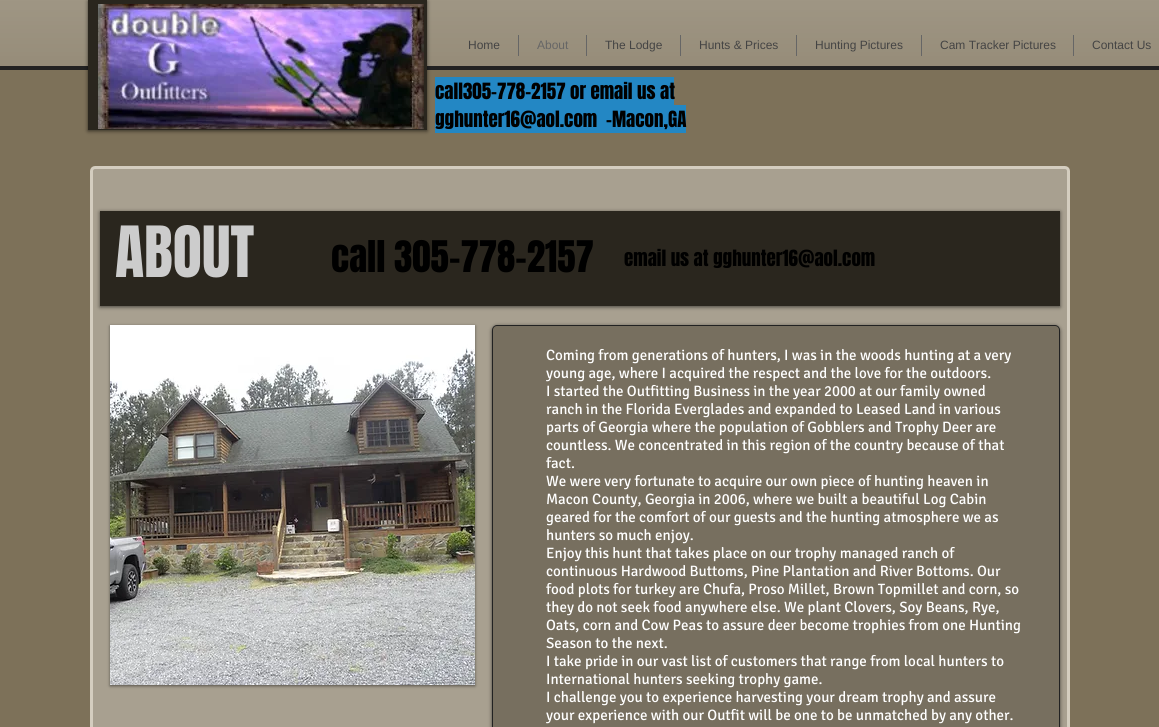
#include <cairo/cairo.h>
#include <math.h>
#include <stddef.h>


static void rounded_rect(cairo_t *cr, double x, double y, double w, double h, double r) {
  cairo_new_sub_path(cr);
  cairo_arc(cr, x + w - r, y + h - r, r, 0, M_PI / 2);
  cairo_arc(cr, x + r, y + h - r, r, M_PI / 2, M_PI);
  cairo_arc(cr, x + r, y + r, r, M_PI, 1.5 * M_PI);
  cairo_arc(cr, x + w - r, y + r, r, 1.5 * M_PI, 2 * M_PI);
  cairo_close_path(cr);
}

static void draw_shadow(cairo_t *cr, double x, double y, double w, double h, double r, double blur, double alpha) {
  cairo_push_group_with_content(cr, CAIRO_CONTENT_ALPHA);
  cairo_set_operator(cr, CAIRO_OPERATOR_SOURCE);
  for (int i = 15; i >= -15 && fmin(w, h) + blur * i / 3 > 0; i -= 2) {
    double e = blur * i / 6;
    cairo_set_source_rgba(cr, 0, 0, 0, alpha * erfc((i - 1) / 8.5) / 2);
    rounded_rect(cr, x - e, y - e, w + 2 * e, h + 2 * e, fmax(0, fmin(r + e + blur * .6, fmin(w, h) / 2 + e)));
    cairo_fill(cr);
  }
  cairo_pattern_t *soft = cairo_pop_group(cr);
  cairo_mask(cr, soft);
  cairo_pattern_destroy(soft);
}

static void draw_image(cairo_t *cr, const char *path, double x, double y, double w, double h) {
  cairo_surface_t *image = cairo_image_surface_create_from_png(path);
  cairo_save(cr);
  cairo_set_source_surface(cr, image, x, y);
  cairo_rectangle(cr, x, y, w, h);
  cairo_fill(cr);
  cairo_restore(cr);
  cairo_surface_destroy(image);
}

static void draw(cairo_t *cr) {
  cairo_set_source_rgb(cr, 125 / 255.0, 113 / 255.0, 89 / 255.0);
  cairo_paint(cr);
  draw_image(cr, "images/2.png", 0, 0, 1159, 66);
  cairo_set_source_rgb(cr, 34 / 255.0, 34 / 255.0, 34 / 255.0);
  cairo_rectangle(cr, 0, 66, 1159, 4);
  cairo_fill(cr);
  cairo_set_source_rgb(cr, 0, 0, 0);
  draw_shadow(cr, 88, 1, 339, 130, 0, 2, 0.6);
  cairo_set_source_rgb(cr, 42 / 255.0, 38 / 255.0, 30 / 255.0);
  cairo_rectangle(cr, 88, 0, 339, 130);
  cairo_fill(cr);
  draw_image(cr, "images/1.png", 98, 4, 326, 125);
  cairo_set_source_rgb(cr, 102 / 255.0, 102 / 255.0, 102 / 255.0);
  cairo_rectangle(cr, 518, 35, 1, 21);
  cairo_fill(cr);
  cairo_rectangle(cr, 586, 35, 1, 21);
  cairo_fill(cr);
  cairo_rectangle(cr, 680, 35, 1, 21);
  cairo_fill(cr);
  cairo_rectangle(cr, 796, 35, 1, 21);
  cairo_fill(cr);
  cairo_rectangle(cr, 921, 35, 1, 21);
  cairo_fill(cr);
  cairo_rectangle(cr, 1073, 35, 1, 21);
  cairo_fill(cr);
  cairo_set_source_rgb(cr, 35 / 255.0, 135 / 255.0, 196 / 255.0);
  cairo_rectangle(cr, 435, 77, 239, 28);
  cairo_fill(cr);
  cairo_rectangle(cr, 435, 105, 251, 28);
  cairo_fill(cr);
  cairo_set_source_rgb(cr, 168 / 255.0, 160 / 255.0, 144 / 255.0);
  rounded_rect(cr, 91.5, 167.5, 977, 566, 3.5);
  cairo_fill_preserve(cr);
  cairo_set_source_rgb(cr, 212 / 255.0, 205 / 255.0, 191 / 255.0);
  cairo_set_line_width(cr, 3);
  cairo_stroke(cr);
  cairo_set_source_rgb(cr, 0, 0, 0);
  draw_shadow(cr, 100, 212, 960, 95, 0, 2, 0.6);
  cairo_set_source_rgb(cr, 42 / 255.0, 38 / 255.0, 30 / 255.0);
  cairo_rectangle(cr, 100, 211, 960, 95);
  cairo_fill(cr);
  cairo_set_source_rgb(cr, 0, 0, 0);
  draw_shadow(cr, 110, 326, 365, 360, 0, 1.5, 0.5);
  draw_image(cr, "images/3.png", 110, 325, 365, 360);
  cairo_save(cr);
  cairo_set_fill_rule(cr, CAIRO_FILL_RULE_EVEN_ODD);
  cairo_new_path(cr);
  cairo_move_to(cr, 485, 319);
  cairo_line_to(cr, 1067, 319);
  cairo_line_to(cr, 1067, 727);
  cairo_line_to(cr, 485, 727);
  cairo_close_path(cr);
  cairo_move_to(cr, 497, 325);
  cairo_line_to(cr, 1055, 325);
  cairo_curve_to(cr, 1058, 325, 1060, 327, 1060, 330);
  cairo_line_to(cr, 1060, 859);
  cairo_curve_to(cr, 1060, 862, 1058, 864, 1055, 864);
  cairo_line_to(cr, 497, 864);
  cairo_curve_to(cr, 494, 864, 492, 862, 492, 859);
  cairo_line_to(cr, 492, 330);
  cairo_curve_to(cr, 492, 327, 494, 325, 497, 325);
  cairo_close_path(cr);
  cairo_clip(cr);
  draw_shadow(cr, 492, 326, 568, 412, 5, 2, 0.6);
  cairo_restore(cr);
  cairo_set_source_rgba(cr, 83 / 255.0, 75 / 255.0, 59 / 255.0, 0.57);
  rounded_rect(cr, 492.5, 325.5, 567, 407, 4.5);
  cairo_fill_preserve(cr);
  cairo_set_source_rgb(cr, 34 / 255.0, 34 / 255.0, 34 / 255.0);
  cairo_set_line_width(cr, 1);
  cairo_stroke(cr);
  cairo_select_font_face(cr, "Liberation Sans", CAIRO_FONT_SLANT_NORMAL, CAIRO_FONT_WEIGHT_NORMAL);
  cairo_set_font_size(cr, 12);
  cairo_set_source_rgb(cr, 68 / 255.0, 68 / 255.0, 68 / 255.0);
  cairo_move_to(cr, 468, 49);
  cairo_show_text(cr, "Home");
  cairo_set_source_rgb(cr, 102 / 255.0, 102 / 255.0, 102 / 255.0);
  cairo_move_to(cr, 537, 49);
  cairo_show_text(cr, "About");
  cairo_set_source_rgb(cr, 68 / 255.0, 68 / 255.0, 68 / 255.0);
  cairo_move_to(cr, 605, 49);
  cairo_show_text(cr, "The Lodge");
  cairo_move_to(cr, 699, 49);
  cairo_show_text(cr, "Hunts & Prices");
  cairo_move_to(cr, 815, 49);
  cairo_show_text(cr, "Hunting Pictures");
  cairo_move_to(cr, 940, 49);
  cairo_show_text(cr, "Cam Tracker Pictures");
  cairo_move_to(cr, 1092, 49);
  cairo_show_text(cr, "Contact Us");
  cairo_select_font_face(cr, "Anton", CAIRO_FONT_SLANT_NORMAL, CAIRO_FONT_WEIGHT_NORMAL);
  cairo_set_font_size(cr, 19);
  cairo_set_source_rgb(cr, 0, 0, 0);
  cairo_move_to(cr, 435, 99);
  cairo_show_text(cr, "call305-778-2157 or email us at");
  cairo_move_to(cr, 435, 127);
  cairo_show_text(cr, "gghunter16@aol.com");
  cairo_move_to(cr, 606, 127);
  cairo_show_text(cr, "-Macon,GA");
  cairo_set_font_size(cr, 60);
  cairo_set_source_rgb(cr, 204 / 255.0, 204 / 255.0, 204 / 255.0);
  cairo_move_to(cr, 115, 277);
  cairo_show_text(cr, "ABOUT");
  cairo_set_font_size(cr, 37);
  cairo_set_source_rgb(cr, 0, 0, 0);
  cairo_move_to(cr, 331, 272);
  cairo_show_text(cr, "call 305-778-2157");
  cairo_set_font_size(cr, 19);
  cairo_move_to(cr, 624, 266);
  cairo_show_text(cr, "email us at gghunter16@aol.com");
  cairo_select_font_face(cr, "Signika", CAIRO_FONT_SLANT_NORMAL, CAIRO_FONT_WEIGHT_NORMAL);
  cairo_set_font_size(cr, 15);
  cairo_set_source_rgb(cr, 1, 1, 1);
  cairo_move_to(cr, 546, 360);
  cairo_show_text(cr, "Coming from generations of hunters, I was in the woods hunting at a very");
  cairo_move_to(cr, 546, 378);
  cairo_show_text(cr, "young age, where I acquired the respect and the love for the outdoors.");
  cairo_move_to(cr, 546, 396);
  cairo_show_text(cr, "I started the Outfitting Business in the year 2000 at our family owned");
  cairo_move_to(cr, 546, 414);
  cairo_show_text(cr, "ranch in the Florida Everglades and expanded to Leased Land in various");
  cairo_move_to(cr, 546, 432);
  cairo_show_text(cr, "parts of Georgia where the population of Gobblers and Trophy Deer are");
  cairo_move_to(cr, 546, 450);
  cairo_show_text(cr, "countless. We concentrated in this region of the country because of that");
  cairo_move_to(cr, 546, 468);
  cairo_show_text(cr, "fact.");
  cairo_move_to(cr, 546, 486);
  cairo_show_text(cr, "We were very fortunate to acquire our own piece of hunting heaven in");
  cairo_move_to(cr, 546, 504);
  cairo_show_text(cr, "Macon County, Georgia in 2006, where we built a beautiful Log Cabin");
  cairo_move_to(cr, 546, 522);
  cairo_show_text(cr, "geared for the comfort of our guests and the hunting atmosphere we as");
  cairo_move_to(cr, 546, 540);
  cairo_show_text(cr, "hunters so much enjoy.");
  cairo_move_to(cr, 546, 558);
  cairo_show_text(cr, "Enjoy this hunt that takes place on our trophy managed ranch of");
  cairo_move_to(cr, 546, 576);
  cairo_show_text(cr, "continuous Hardwood Buttoms, Pine Plantation and River Bottoms. Our");
  cairo_move_to(cr, 546, 594);
  cairo_show_text(cr, "food plots for turkey are Chufa, Proso Millet, Brown Topmillet and corn, so");
  cairo_move_to(cr, 546, 612);
  cairo_show_text(cr, "they do not seek food anywhere else. We plant Clovers, Soy Beans, Rye,");
  cairo_move_to(cr, 546, 630);
  cairo_show_text(cr, "Oats, corn and Cow Peas to assure deer become trophies from one Hunting");
  cairo_move_to(cr, 546, 648);
  cairo_show_text(cr, "Season to the next.");
  cairo_move_to(cr, 546, 666);
  cairo_show_text(cr, "I take pride in our vast list of customers that range from local hunters to");
  cairo_move_to(cr, 546, 684);
  cairo_show_text(cr, "International hunters seeking trophy game.");
  cairo_move_to(cr, 546, 702);
  cairo_show_text(cr, "I challenge you to experience harvesting your dream trophy and assure");
  cairo_move_to(cr, 546, 720);
  cairo_show_text(cr, "your experience with our Outfit will be one to be unmatched by any other.");
}

int main(void) {
  cairo_surface_t *surface = cairo_image_surface_create(CAIRO_FORMAT_RGB24, 1159, 727);
  cairo_t *cr = cairo_create(surface);
  cairo_font_options_t *options = cairo_font_options_create();
  cairo_font_options_set_hint_metrics(options, CAIRO_HINT_METRICS_OFF);
  cairo_font_options_set_hint_style(options, CAIRO_HINT_STYLE_NONE);
  cairo_set_font_options(cr, options);
  cairo_set_miter_limit(cr, 4);
  draw(cr);
  cairo_surface_write_to_png(surface, "out.png");
  cairo_font_options_destroy(options);
  cairo_destroy(cr);
  cairo_surface_destroy(surface);
  return 0;
}
